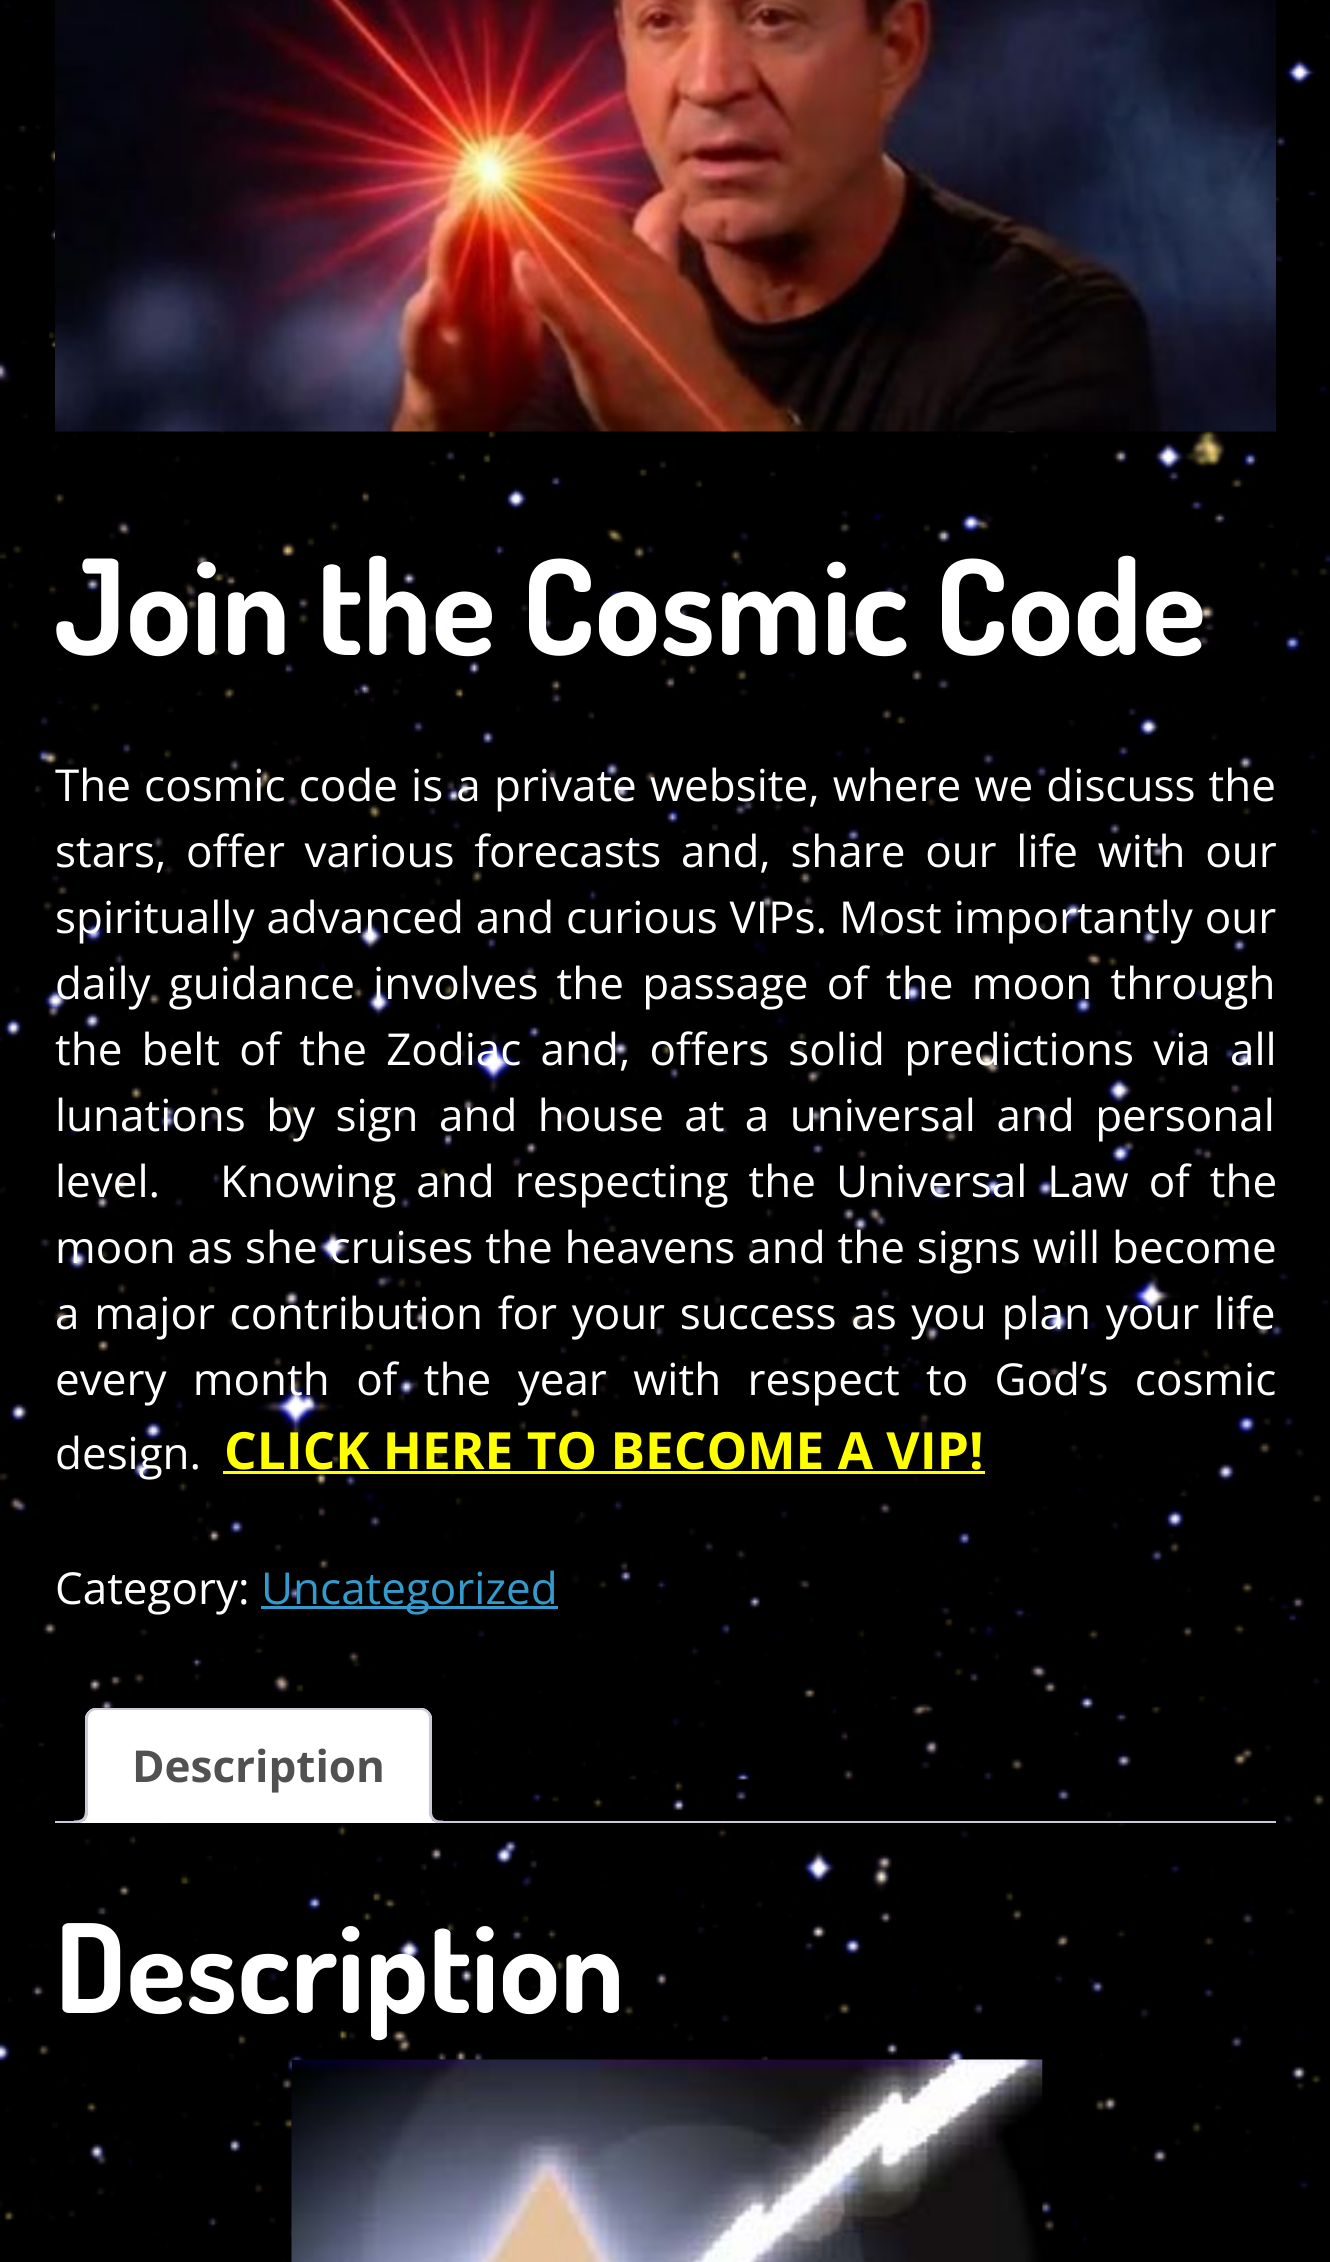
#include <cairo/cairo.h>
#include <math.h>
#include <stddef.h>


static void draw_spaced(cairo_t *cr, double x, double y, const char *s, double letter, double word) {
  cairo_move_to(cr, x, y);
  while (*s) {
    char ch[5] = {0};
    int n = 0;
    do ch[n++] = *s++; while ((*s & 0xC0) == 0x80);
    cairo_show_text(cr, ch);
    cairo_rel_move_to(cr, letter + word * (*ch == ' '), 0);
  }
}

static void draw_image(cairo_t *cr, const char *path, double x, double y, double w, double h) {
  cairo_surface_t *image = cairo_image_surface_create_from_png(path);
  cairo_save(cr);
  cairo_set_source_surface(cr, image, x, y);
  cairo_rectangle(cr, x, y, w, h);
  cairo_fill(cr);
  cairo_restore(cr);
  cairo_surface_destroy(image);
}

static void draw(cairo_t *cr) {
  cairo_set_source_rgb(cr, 1, 1, 1);
  cairo_paint(cr);
  draw_image(cr, "images/1.png", 0, 0, 1330, 2262);
  draw_image(cr, "images/2.png", 55, 0, 1221, 432);
  cairo_set_source_rgb(cr, 1, 1, 0);
  cairo_rectangle(cr, 223, 1471, 762, 3);
  cairo_fill(cr);
  cairo_set_source_rgb(cr, 51 / 255.0, 155 / 255.0, 203 / 255.0);
  cairo_rectangle(cr, 261, 1606, 297, 3);
  cairo_fill(cr);
  cairo_set_source_rgb(cr, 207 / 255.0, 200 / 255.0, 216 / 255.0);
  cairo_rectangle(cr, 55, 1821, 1221, 2);
  cairo_fill(cr);
  cairo_set_source_rgb(cr, 1, 1, 1);
  cairo_new_path(cr);
  cairo_move_to(cr, 96, 1708);
  cairo_line_to(cr, 421, 1708);
  cairo_curve_to(cr, 427, 1708, 432, 1713, 432, 1719);
  cairo_line_to(cr, 432, 1823);
  cairo_line_to(cr, 85, 1823);
  cairo_line_to(cr, 85, 1719);
  cairo_curve_to(cr, 85, 1713, 90, 1708, 96, 1708);
  cairo_close_path(cr);
  cairo_fill(cr);
  cairo_set_source_rgb(cr, 207 / 255.0, 200 / 255.0, 216 / 255.0);
  cairo_new_path(cr);
  cairo_move_to(cr, 96, 1708);
  cairo_curve_to(cr, 93, 1708, 90, 1709, 89, 1711);
  cairo_line_to(cr, 90, 1713);
  cairo_curve_to(cr, 92, 1711, 94, 1710, 96, 1710);
  cairo_line_to(cr, 421, 1710);
  cairo_curve_to(cr, 423, 1710, 425, 1711, 427, 1713);
  cairo_line_to(cr, 428, 1711);
  cairo_curve_to(cr, 427, 1709, 424, 1708, 421, 1708);
  cairo_close_path(cr);
  cairo_fill(cr);
  cairo_new_path(cr);
  cairo_move_to(cr, 428, 1711);
  cairo_curve_to(cr, 430, 1713, 431, 1714, 432, 1717);
  cairo_line_to(cr, 432, 1823);
  cairo_line_to(cr, 428, 1820);
  cairo_line_to(cr, 429, 1820);
  cairo_line_to(cr, 429, 1719);
  cairo_curve_to(cr, 429, 1717, 428, 1714, 427, 1713);
  cairo_close_path(cr);
  cairo_fill(cr);
  cairo_set_source_rgb(cr, 1, 1, 1);
  cairo_new_path(cr);
  cairo_move_to(cr, 432, 1823);
  cairo_line_to(cr, 86, 1823);
  cairo_line_to(cr, 88, 1820);
  cairo_line_to(cr, 428, 1820);
  cairo_close_path(cr);
  cairo_fill(cr);
  cairo_set_source_rgb(cr, 207 / 255.0, 200 / 255.0, 216 / 255.0);
  cairo_new_path(cr);
  cairo_move_to(cr, 85, 1717);
  cairo_curve_to(cr, 86, 1714, 87, 1713, 89, 1711);
  cairo_line_to(cr, 90, 1713);
  cairo_curve_to(cr, 89, 1714, 88, 1717, 88, 1719);
  cairo_line_to(cr, 88, 1820);
  cairo_line_to(cr, 85, 1823);
  cairo_close_path(cr);
  cairo_fill(cr);
  cairo_save(cr);
  cairo_rectangle(cr, 55, 1708, 1221, 115);
  cairo_clip(cr);
  cairo_set_source_rgb(cr, 1, 1, 1);
  cairo_new_path(cr);
  cairo_move_to(cr, 80, 1823);
  cairo_line_to(cr, 80, 1829);
  cairo_line_to(cr, 83, 1829);
  cairo_curve_to(cr, 89, 1829, 94, 1824, 94, 1818);
  cairo_line_to(cr, 94, 1815);
  cairo_line_to(cr, 87.5, 1815);
  cairo_curve_to(cr, 86.5, 1819, 83.5, 1822, 80, 1823);
  cairo_close_path(cr);
  cairo_fill(cr);
  cairo_restore(cr);
  cairo_set_fill_rule(cr, CAIRO_FILL_RULE_EVEN_ODD);
  cairo_new_path(cr);
  cairo_move_to(cr, 74, 1809.5);
  cairo_line_to(cr, 88, 1809.5);
  cairo_curve_to(cr, 88, 1819.5, 84, 1823, 74, 1823);
  cairo_close_path(cr);
  cairo_move_to(cr, 74, 1809.5);
  cairo_line_to(cr, 85, 1809.5);
  cairo_curve_to(cr, 85, 1818, 82.5, 1820.5, 74, 1820.5);
  cairo_close_path(cr);
  cairo_fill(cr);
  cairo_save(cr);
  cairo_set_fill_rule(cr, CAIRO_FILL_RULE_WINDING);
  cairo_rectangle(cr, 55, 1708, 1221, 115);
  cairo_clip(cr);
  cairo_set_source_rgb(cr, 1, 1, 1);
  cairo_new_path(cr);
  cairo_move_to(cr, 424, 1815);
  cairo_line_to(cr, 424, 1820);
  cairo_curve_to(cr, 425.5, 1827, 431, 1829, 437, 1829);
  cairo_line_to(cr, 437, 1823);
  cairo_curve_to(cr, 433.5, 1822, 430.5, 1819, 429.5, 1815);
  cairo_close_path(cr);
  cairo_fill(cr);
  cairo_restore(cr);
  cairo_new_path(cr);
  cairo_move_to(cr, 429, 1809.5);
  cairo_line_to(cr, 443, 1809.5);
  cairo_line_to(cr, 443, 1823);
  cairo_line_to(cr, 440, 1823);
  cairo_curve_to(cr, 434, 1823, 429, 1818.5, 429, 1812);
  cairo_close_path(cr);
  cairo_move_to(cr, 432, 1809.5);
  cairo_line_to(cr, 443, 1809.5);
  cairo_line_to(cr, 443, 1820.5);
  cairo_line_to(cr, 440, 1820.5);
  cairo_curve_to(cr, 435.5, 1820.5, 432, 1817, 432, 1812);
  cairo_close_path(cr);
  cairo_fill(cr);
  draw_image(cr, "images/3.png", 291, 2059, 752, 203);
  cairo_select_font_face(cr, "Dosis", CAIRO_FONT_SLANT_NORMAL, CAIRO_FONT_WEIGHT_BOLD);
  cairo_set_font_size(cr, 132);
  cairo_set_source_rgb(cr, 1, 1, 1);
  cairo_move_to(cr, 55, 655);
  cairo_show_text(cr, "Join the Cosmic Code");
  cairo_select_font_face(cr, "Open Sans", CAIRO_FONT_SLANT_NORMAL, CAIRO_FONT_WEIGHT_NORMAL);
  cairo_set_font_size(cr, 44);
  draw_spaced(cr, 55, 801, "The cosmic code is a private website, where we discuss the", 0, 1.75);
  draw_spaced(cr, 55, 867, "stars, offer various forecasts and, share our life with our", 0, 8.25);
  draw_spaced(cr, 55, 933, "spiritually advanced and curious VIPs. Most importantly our", 0, 0.5);
  draw_spaced(cr, 55, 999, "daily guidance involves the passage of the moon through", 0, 6.75);
  draw_spaced(cr, 55, 1065, "the belt of the Zodiac and, offers solid predictions via all", 0, 7.75);
  draw_spaced(cr, 55, 1131, "lunations by sign and house at a universal and personal", 0, 9);
  draw_spaced(cr, 55, 1197, "level.   Knowing and respecting the Universal Law of the", 0, 8.5);
  draw_spaced(cr, 55, 1263, "moon as she cruises the heavens and the signs will become", 0, 0.5);
  draw_spaced(cr, 55, 1329, "a major contribution for your success as you plan your life", 0, 3.25);
  draw_spaced(cr, 55, 1395, "every month of the year with respect to God’s cosmic", 0, 15);
  cairo_move_to(cr, 55, 1469);
  cairo_show_text(cr, "design.");
  cairo_select_font_face(cr, "Open Sans", CAIRO_FONT_SLANT_NORMAL, CAIRO_FONT_WEIGHT_BOLD);
  cairo_set_font_size(cr, 51.3);
  cairo_set_source_rgb(cr, 1, 1, 0);
  cairo_move_to(cr, 224, 1469);
  cairo_show_text(cr, "CLICK HERE TO BECOME A VIP!");
  cairo_select_font_face(cr, "Open Sans", CAIRO_FONT_SLANT_NORMAL, CAIRO_FONT_WEIGHT_NORMAL);
  cairo_set_font_size(cr, 44);
  cairo_set_source_rgb(cr, 1, 1, 1);
  cairo_move_to(cr, 55, 1604);
  cairo_show_text(cr, "Category:");
  cairo_set_source_rgb(cr, 51 / 255.0, 155 / 255.0, 203 / 255.0);
  cairo_move_to(cr, 261, 1604);
  cairo_show_text(cr, "Uncategorized");
  cairo_select_font_face(cr, "Open Sans", CAIRO_FONT_SLANT_NORMAL, CAIRO_FONT_WEIGHT_BOLD);
  cairo_set_source_rgb(cr, 81 / 255.0, 81 / 255.0, 81 / 255.0);
  cairo_move_to(cr, 132, 1782);
  cairo_show_text(cr, "Description");
  cairo_select_font_face(cr, "Dosis", CAIRO_FONT_SLANT_NORMAL, CAIRO_FONT_WEIGHT_BOLD);
  cairo_set_font_size(cr, 123);
  cairo_set_source_rgb(cr, 1, 1, 1);
  cairo_move_to(cr, 55, 2013);
  cairo_show_text(cr, "Description");
}

int main(void) {
  cairo_surface_t *surface = cairo_image_surface_create(CAIRO_FORMAT_RGB24, 1330, 2262);
  cairo_t *cr = cairo_create(surface);
  cairo_font_options_t *options = cairo_font_options_create();
  cairo_font_options_set_hint_metrics(options, CAIRO_HINT_METRICS_OFF);
  cairo_font_options_set_hint_style(options, CAIRO_HINT_STYLE_NONE);
  cairo_set_font_options(cr, options);
  cairo_set_miter_limit(cr, 4);
  draw(cr);
  cairo_surface_write_to_png(surface, "out.png");
  cairo_font_options_destroy(options);
  cairo_destroy(cr);
  cairo_surface_destroy(surface);
  return 0;
}
